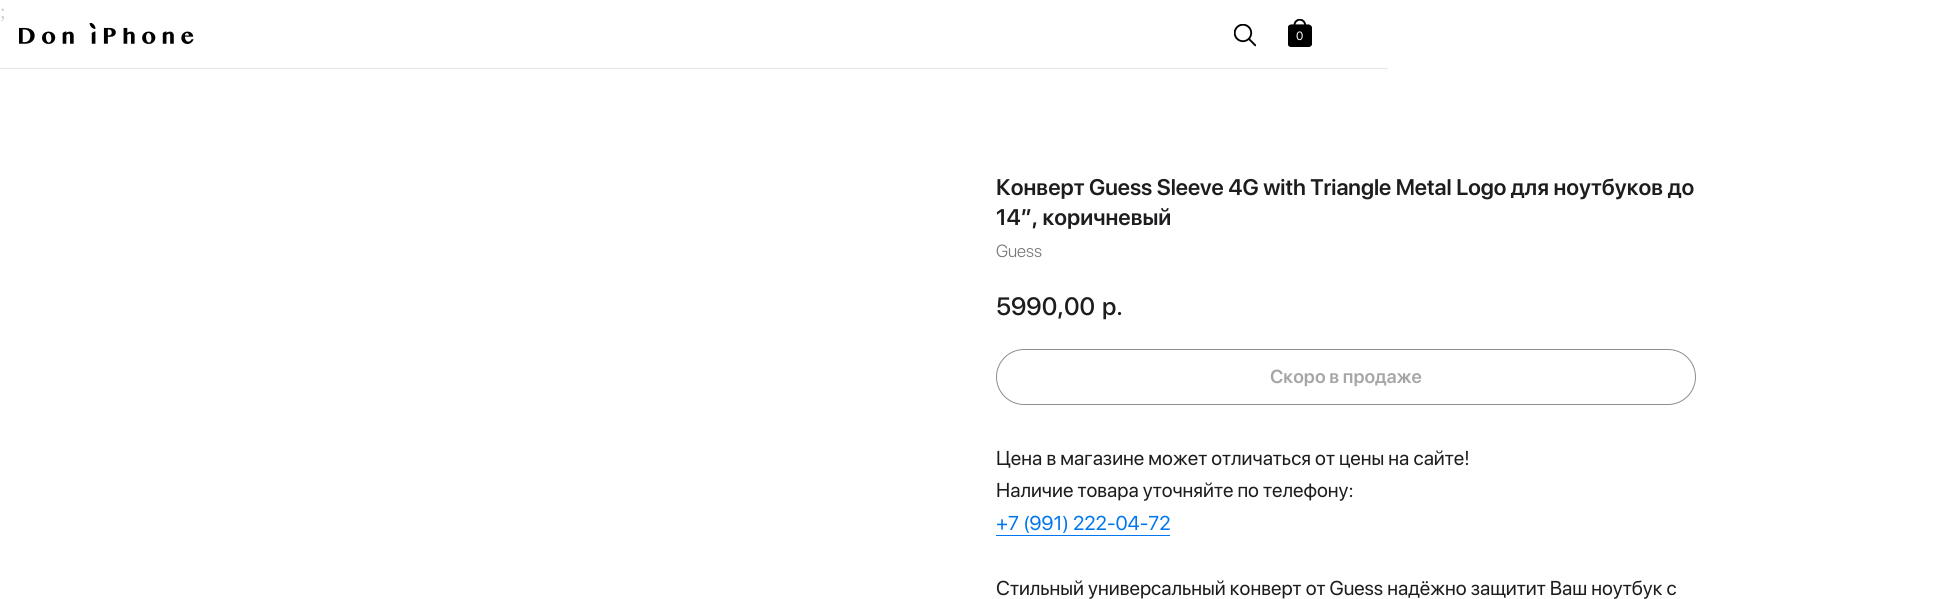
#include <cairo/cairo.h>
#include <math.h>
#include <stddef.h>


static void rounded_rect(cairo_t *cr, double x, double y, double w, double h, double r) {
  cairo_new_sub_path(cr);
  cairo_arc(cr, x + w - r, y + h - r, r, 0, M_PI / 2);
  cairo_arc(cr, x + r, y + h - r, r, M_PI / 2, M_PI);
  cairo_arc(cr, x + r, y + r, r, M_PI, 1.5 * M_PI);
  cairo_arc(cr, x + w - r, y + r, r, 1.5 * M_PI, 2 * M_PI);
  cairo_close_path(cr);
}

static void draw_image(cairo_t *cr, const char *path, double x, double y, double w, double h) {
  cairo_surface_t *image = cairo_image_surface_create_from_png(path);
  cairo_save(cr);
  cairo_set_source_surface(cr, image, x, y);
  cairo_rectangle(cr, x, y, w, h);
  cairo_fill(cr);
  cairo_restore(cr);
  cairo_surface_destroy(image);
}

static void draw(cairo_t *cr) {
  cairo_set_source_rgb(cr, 1, 1, 1);
  cairo_paint(cr);
  draw_image(cr, "images/1.png", 19, 23, 175, 21);
  draw_image(cr, "images/2.png", 1234, 24, 22, 23);
  draw_image(cr, "images/3.png", 1288, 19, 24, 28);
  cairo_set_source_rgb(cr, 230 / 255.0, 230 / 255.0, 230 / 255.0);
  cairo_rectangle(cr, 0, 68, 1388, 1);
  cairo_fill(cr);
  rounded_rect(cr, 996.5, 349.5, 699, 55, 27.5);
  cairo_set_source_rgb(cr, 142 / 255.0, 142 / 255.0, 143 / 255.0);
  cairo_set_line_width(cr, 1);
  cairo_stroke(cr);
  cairo_set_source_rgb(cr, 0, 119 / 255.0, 237 / 255.0);
  cairo_rectangle(cr, 996, 535, 174, 1);
  cairo_fill(cr);
  cairo_select_font_face(cr, "Liberation Serif", CAIRO_FONT_SLANT_NORMAL, CAIRO_FONT_WEIGHT_NORMAL);
  cairo_set_font_size(cr, 20);
  cairo_set_source_rgb(cr, 204 / 255.0, 204 / 255.0, 204 / 255.0);
  cairo_move_to(cr, 0, 18);
  cairo_show_text(cr, ";");
  cairo_select_font_face(cr, "SF Pro Display", CAIRO_FONT_SLANT_NORMAL, CAIRO_FONT_WEIGHT_NORMAL);
  cairo_set_font_size(cr, 12);
  cairo_set_source_rgb(cr, 1, 1, 1);
  cairo_move_to(cr, 1296, 40);
  cairo_show_text(cr, "0");
  cairo_select_font_face(cr, "SF Pro Display SemiBold", CAIRO_FONT_SLANT_NORMAL, CAIRO_FONT_WEIGHT_NORMAL);
  cairo_set_font_size(cr, 22.5);
  cairo_set_source_rgb(cr, 29 / 255.0, 29 / 255.0, 31 / 255.0);
  cairo_move_to(cr, 996, 195);
  cairo_show_text(cr, "Конверт Guess Sleeve 4G with Triangle Metal Logo для ноутбуков до");
  cairo_move_to(cr, 996, 225);
  cairo_show_text(cr, "14”, коричневый");
  cairo_select_font_face(cr, "SF Pro Display Light", CAIRO_FONT_SLANT_NORMAL, CAIRO_FONT_WEIGHT_NORMAL);
  cairo_set_font_size(cr, 17.5);
  cairo_set_source_rgb(cr, 119 / 255.0, 119 / 255.0, 119 / 255.0);
  cairo_move_to(cr, 996, 257);
  cairo_show_text(cr, "Guess");
  cairo_select_font_face(cr, "SF Pro Display Medium", CAIRO_FONT_SLANT_NORMAL, CAIRO_FONT_WEIGHT_NORMAL);
  cairo_set_font_size(cr, 25);
  cairo_set_source_rgb(cr, 29 / 255.0, 29 / 255.0, 31 / 255.0);
  cairo_move_to(cr, 996, 315);
  cairo_show_text(cr, "5990,00");
  cairo_move_to(cr, 1102, 315);
  cairo_show_text(cr, "р.");
  cairo_select_font_face(cr, "SF Pro Display SemiBold", CAIRO_FONT_SLANT_NORMAL, CAIRO_FONT_WEIGHT_NORMAL);
  cairo_set_font_size(cr, 18.75);
  cairo_set_source_rgb(cr, 166 / 255.0, 166 / 255.0, 166 / 255.0);
  cairo_move_to(cr, 1270, 383);
  cairo_show_text(cr, "Скоро в продаже");
  cairo_select_font_face(cr, "SF Pro Display", CAIRO_FONT_SLANT_NORMAL, CAIRO_FONT_WEIGHT_NORMAL);
  cairo_set_font_size(cr, 20);
  cairo_set_source_rgb(cr, 29 / 255.0, 29 / 255.0, 31 / 255.0);
  cairo_move_to(cr, 996, 465);
  cairo_show_text(cr, "Цена в магазине может отличаться от цены на сайте!");
  cairo_move_to(cr, 996, 497);
  cairo_show_text(cr, "Наличие товара уточняйте по телефону:");
  cairo_set_source_rgb(cr, 0, 119 / 255.0, 237 / 255.0);
  cairo_move_to(cr, 996, 530);
  cairo_show_text(cr, "+7 (991) 222-04-72");
  cairo_set_source_rgb(cr, 29 / 255.0, 29 / 255.0, 31 / 255.0);
  cairo_move_to(cr, 996, 595);
  cairo_show_text(cr, "Стильный универсальный конверт от Guess надёжно защитит Ваш ноутбук с");
}

int main(void) {
  cairo_surface_t *surface = cairo_image_surface_create(CAIRO_FORMAT_RGB24, 1941, 599);
  cairo_t *cr = cairo_create(surface);
  cairo_font_options_t *options = cairo_font_options_create();
  cairo_font_options_set_hint_metrics(options, CAIRO_HINT_METRICS_OFF);
  cairo_font_options_set_hint_style(options, CAIRO_HINT_STYLE_NONE);
  cairo_set_font_options(cr, options);
  cairo_set_miter_limit(cr, 4);
  draw(cr);
  cairo_surface_write_to_png(surface, "out.png");
  cairo_font_options_destroy(options);
  cairo_destroy(cr);
  cairo_surface_destroy(surface);
  return 0;
}
